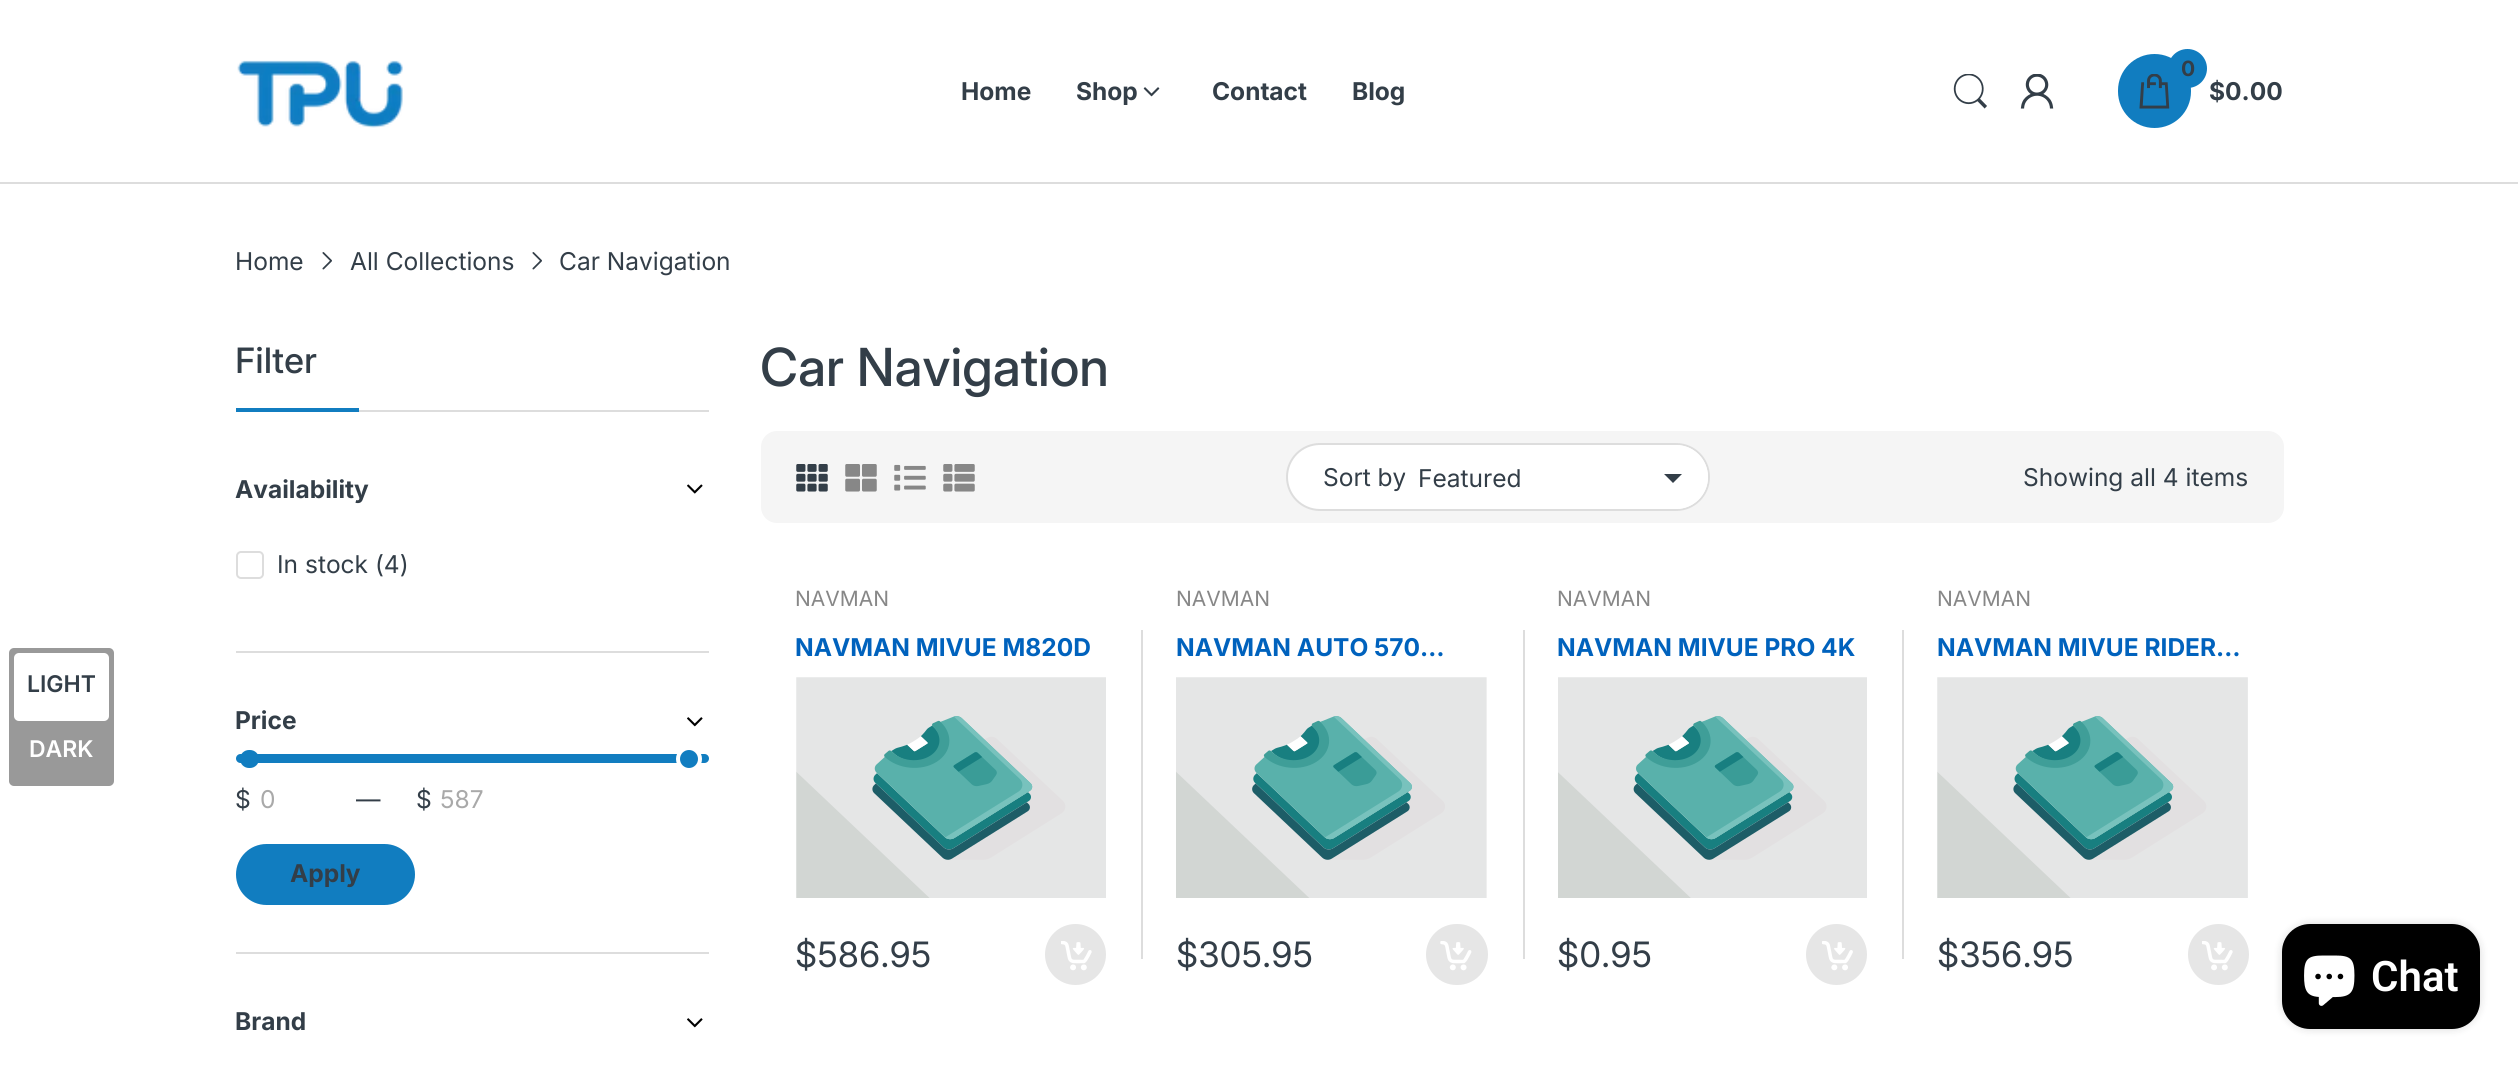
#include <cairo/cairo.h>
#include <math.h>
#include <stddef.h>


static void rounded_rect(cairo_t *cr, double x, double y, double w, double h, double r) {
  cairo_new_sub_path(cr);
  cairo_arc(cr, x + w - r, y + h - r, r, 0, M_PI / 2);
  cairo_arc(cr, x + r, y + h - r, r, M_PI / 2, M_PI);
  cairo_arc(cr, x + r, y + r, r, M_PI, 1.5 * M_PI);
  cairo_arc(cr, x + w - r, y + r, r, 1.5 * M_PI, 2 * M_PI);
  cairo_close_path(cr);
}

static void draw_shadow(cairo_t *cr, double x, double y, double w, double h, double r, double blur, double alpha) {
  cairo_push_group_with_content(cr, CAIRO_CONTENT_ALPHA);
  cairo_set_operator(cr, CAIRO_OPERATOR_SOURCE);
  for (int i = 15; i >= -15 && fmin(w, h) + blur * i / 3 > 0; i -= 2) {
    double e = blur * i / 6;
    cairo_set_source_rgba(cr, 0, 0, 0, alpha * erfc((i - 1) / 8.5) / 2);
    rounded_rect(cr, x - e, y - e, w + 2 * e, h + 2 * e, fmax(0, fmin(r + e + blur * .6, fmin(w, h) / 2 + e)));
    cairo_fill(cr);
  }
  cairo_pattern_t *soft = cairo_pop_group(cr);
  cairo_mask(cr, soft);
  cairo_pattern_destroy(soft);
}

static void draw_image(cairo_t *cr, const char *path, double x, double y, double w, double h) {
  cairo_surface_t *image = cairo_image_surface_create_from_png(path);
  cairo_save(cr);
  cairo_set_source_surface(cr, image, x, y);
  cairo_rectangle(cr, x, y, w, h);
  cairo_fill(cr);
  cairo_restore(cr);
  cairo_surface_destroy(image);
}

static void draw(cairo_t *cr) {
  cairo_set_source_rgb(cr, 1, 1, 1);
  cairo_paint(cr);
  cairo_set_source_rgb(cr, 153 / 255.0, 153 / 255.0, 153 / 255.0);
  rounded_rect(cr, 9, 648, 105, 138, 5);
  cairo_fill(cr);
  cairo_set_source_rgb(cr, 1, 1, 1);
  rounded_rect(cr, 14, 653, 95, 68, 5);
  cairo_fill(cr);
  cairo_set_source_rgb(cr, 221 / 255.0, 221 / 255.0, 221 / 255.0);
  cairo_rectangle(cr, 0, 182, 2518, 2);
  cairo_fill(cr);
  draw_image(cr, "images/1.png", 237, 60, 166, 68);
  draw_image(cr, "images/2.png", 1143, 87, 17, 10);
  draw_image(cr, "images/3.png", 1953, 74, 34, 35);
  draw_image(cr, "images/4.png", 2020, 74, 34, 35);
  cairo_set_source_rgb(cr, 17 / 255.0, 125 / 255.0, 192 / 255.0);
  rounded_rect(cr, 2118, 54, 73, 74, 36.5);
  cairo_fill(cr);
  draw_image(cr, "images/5.png", 2139, 74, 31, 35);
  cairo_arc(cr, 2187.5, 68.5, 18.5, 0, 2 * M_PI);
  cairo_fill_preserve(cr);
  cairo_stroke(cr);
  draw_image(cr, "images/6.png", 322, 252, 10, 18);
  draw_image(cr, "images/6.png", 532, 252, 10, 18);
  cairo_set_source_rgb(cr, 221 / 255.0, 221 / 255.0, 221 / 255.0);
  cairo_rectangle(cr, 359, 410, 350, 2);
  cairo_fill(cr);
  cairo_set_source_rgb(cr, 17 / 255.0, 125 / 255.0, 192 / 255.0);
  cairo_rectangle(cr, 236, 408, 123, 4);
  cairo_fill(cr);
  cairo_set_source_rgb(cr, 221 / 255.0, 221 / 255.0, 221 / 255.0);
  cairo_rectangle(cr, 236, 651, 473, 2);
  cairo_fill(cr);
  draw_image(cr, "images/7.png", 687, 484, 16, 10);
  rounded_rect(cr, 237, 552, 26, 26, 4);
  cairo_stroke(cr);
  cairo_rectangle(cr, 236, 952, 473, 2);
  cairo_fill(cr);
  draw_image(cr, "images/8.png", 687, 717, 16, 10);
  cairo_set_source_rgb(cr, 17 / 255.0, 125 / 255.0, 192 / 255.0);
  rounded_rect(cr, 238, 748, 23, 22, 11);
  cairo_fill_preserve(cr);
  cairo_set_source_rgb(cr, 1, 1, 1);
  cairo_set_line_width(cr, 4);
  cairo_stroke(cr);
  cairo_set_source_rgb(cr, 17 / 255.0, 125 / 255.0, 192 / 255.0);
  rounded_rect(cr, 236, 754, 473, 9, 4.5);
  cairo_fill(cr);
  cairo_arc(cr, 689, 759, 11, 0, 2 * M_PI);
  cairo_fill_preserve(cr);
  cairo_set_source_rgb(cr, 1, 1, 1);
  cairo_stroke(cr);
  cairo_set_source_rgb(cr, 17 / 255.0, 125 / 255.0, 192 / 255.0);
  rounded_rect(cr, 237, 845, 177, 59, 29.5);
  cairo_fill_preserve(cr);
  cairo_set_line_width(cr, 2);
  cairo_stroke(cr);
  draw_image(cr, "images/8.png", 687, 1018, 16, 10);
  cairo_set_source_rgb(cr, 245 / 255.0, 245 / 255.0, 245 / 255.0);
  rounded_rect(cr, 761, 431, 1523, 92, 16);
  cairo_fill(cr);
  draw_image(cr, "images/9.png", 796, 464, 32, 28);
  draw_image(cr, "images/10.png", 845, 464, 32, 28);
  draw_image(cr, "images/11.png", 894, 464, 32, 27);
  draw_image(cr, "images/12.png", 943, 464, 32, 28);
  cairo_set_source_rgb(cr, 1, 1, 1);
  rounded_rect(cr, 1287, 444, 422, 66, 33);
  cairo_fill_preserve(cr);
  cairo_set_source_rgb(cr, 221 / 255.0, 221 / 255.0, 221 / 255.0);
  cairo_stroke(cr);
  draw_image(cr, "images/13.png", 796, 677, 310, 221);
  cairo_set_source_rgb(cr, 230 / 255.0, 230 / 255.0, 230 / 255.0);
  cairo_arc(cr, 1075.5, 954.5, 30.5, 0, 2 * M_PI);
  cairo_fill(cr);
  draw_image(cr, "images/14.png", 1061, 941, 31, 30);
  cairo_set_source_rgb(cr, 221 / 255.0, 221 / 255.0, 221 / 255.0);
  cairo_rectangle(cr, 1141, 630, 2, 329);
  cairo_fill(cr);
  draw_image(cr, "images/15.png", 1176, 677, 311, 221);
  cairo_set_source_rgb(cr, 230 / 255.0, 230 / 255.0, 230 / 255.0);
  rounded_rect(cr, 1426, 924, 62, 61, 30.5);
  cairo_fill(cr);
  draw_image(cr, "images/16.png", 1440, 941, 32, 30);
  cairo_set_source_rgb(cr, 221 / 255.0, 221 / 255.0, 221 / 255.0);
  cairo_rectangle(cr, 1523, 630, 2, 329);
  cairo_fill(cr);
  draw_image(cr, "images/17.png", 1558, 677, 309, 221);
  cairo_set_source_rgb(cr, 230 / 255.0, 230 / 255.0, 230 / 255.0);
  cairo_arc(cr, 1836.5, 954.5, 30.5, 0, 2 * M_PI);
  cairo_fill(cr);
  draw_image(cr, "images/18.png", 1822, 941, 31, 30);
  cairo_set_source_rgb(cr, 221 / 255.0, 221 / 255.0, 221 / 255.0);
  cairo_rectangle(cr, 1902, 630, 2, 329);
  cairo_fill(cr);
  draw_image(cr, "images/19.png", 1937, 677, 311, 221);
  cairo_set_source_rgb(cr, 230 / 255.0, 230 / 255.0, 230 / 255.0);
  cairo_arc(cr, 2218.5, 954.5, 30.5, 0, 2 * M_PI);
  cairo_fill(cr);
  draw_image(cr, "images/14.png", 2202, 941, 31, 30);
  cairo_set_source_rgb(cr, 0, 0, 0);
  draw_shadow(cr, 2282, 924, 198, 105, 28, 4.5, 0.15);
  cairo_set_source_rgb(cr, 0, 0, 0);
  rounded_rect(cr, 2282, 924, 198, 105, 28);
  cairo_fill(cr);
  draw_image(cr, "images/20.png", 2304, 955, 51, 51);
  cairo_select_font_face(cr, "Inter SemiBold", CAIRO_FONT_SLANT_NORMAL, CAIRO_FONT_WEIGHT_NORMAL);
  cairo_set_font_size(cr, 23);
  cairo_set_source_rgb(cr, 51 / 255.0, 62 / 255.0, 72 / 255.0);
  cairo_move_to(cr, 27, 692);
  cairo_show_text(cr, "LIGHT");
  cairo_set_source_rgb(cr, 1, 1, 1);
  cairo_move_to(cr, 29, 757);
  cairo_show_text(cr, "DARK");
  cairo_select_font_face(cr, "Inter", CAIRO_FONT_SLANT_NORMAL, CAIRO_FONT_WEIGHT_BOLD);
  cairo_set_font_size(cr, 24.5);
  cairo_set_source_rgb(cr, 51 / 255.0, 62 / 255.0, 72 / 255.0);
  cairo_move_to(cr, 961, 100);
  cairo_show_text(cr, "Home");
  cairo_move_to(cr, 1076, 100);
  cairo_show_text(cr, "Shop");
  cairo_move_to(cr, 1212, 100);
  cairo_show_text(cr, "Contact");
  cairo_move_to(cr, 1352, 100);
  cairo_show_text(cr, "Blog");
  cairo_set_font_size(cr, 21);
  cairo_move_to(cr, 2181, 76);
  cairo_show_text(cr, "0");
  cairo_set_font_size(cr, 24.5);
  cairo_move_to(cr, 2209, 100);
  cairo_show_text(cr, "$0.00");
  cairo_select_font_face(cr, "Inter", CAIRO_FONT_SLANT_NORMAL, CAIRO_FONT_WEIGHT_NORMAL);
  cairo_move_to(cr, 235, 270);
  cairo_show_text(cr, "Home");
  cairo_move_to(cr, 350, 270);
  cairo_show_text(cr, "All Collections");
  cairo_move_to(cr, 559, 270);
  cairo_show_text(cr, "Car Navigation");
  cairo_select_font_face(cr, "Inter Medium", CAIRO_FONT_SLANT_NORMAL, CAIRO_FONT_WEIGHT_NORMAL);
  cairo_set_font_size(cr, 35);
  cairo_move_to(cr, 235, 373);
  cairo_show_text(cr, "Filter");
  cairo_select_font_face(cr, "Inter", CAIRO_FONT_SLANT_NORMAL, CAIRO_FONT_WEIGHT_BOLD);
  cairo_set_font_size(cr, 24.5);
  cairo_move_to(cr, 235, 498);
  cairo_show_text(cr, "Availability");
  cairo_select_font_face(cr, "Inter", CAIRO_FONT_SLANT_NORMAL, CAIRO_FONT_WEIGHT_NORMAL);
  cairo_move_to(cr, 277, 573);
  cairo_show_text(cr, "In stock (4)");
  cairo_select_font_face(cr, "Inter", CAIRO_FONT_SLANT_NORMAL, CAIRO_FONT_WEIGHT_BOLD);
  cairo_move_to(cr, 235, 729);
  cairo_show_text(cr, "Price");
  cairo_select_font_face(cr, "Inter", CAIRO_FONT_SLANT_NORMAL, CAIRO_FONT_WEIGHT_NORMAL);
  cairo_move_to(cr, 235, 808);
  cairo_show_text(cr, "$");
  cairo_set_source_rgb(cr, 169 / 255.0, 169 / 255.0, 169 / 255.0);
  cairo_move_to(cr, 260, 808);
  cairo_show_text(cr, "0");
  cairo_set_source_rgb(cr, 51 / 255.0, 62 / 255.0, 72 / 255.0);
  cairo_move_to(cr, 356, 808);
  cairo_show_text(cr, "—");
  cairo_move_to(cr, 416, 808);
  cairo_show_text(cr, "$");
  cairo_set_source_rgb(cr, 169 / 255.0, 169 / 255.0, 169 / 255.0);
  cairo_move_to(cr, 440, 808);
  cairo_show_text(cr, "587");
  cairo_select_font_face(cr, "Inter", CAIRO_FONT_SLANT_NORMAL, CAIRO_FONT_WEIGHT_BOLD);
  cairo_set_source_rgb(cr, 51 / 255.0, 62 / 255.0, 72 / 255.0);
  cairo_move_to(cr, 290, 882);
  cairo_show_text(cr, "Apply");
  cairo_move_to(cr, 235, 1030);
  cairo_show_text(cr, "Brand");
  cairo_select_font_face(cr, "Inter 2 Medium", CAIRO_FONT_SLANT_NORMAL, CAIRO_FONT_WEIGHT_NORMAL);
  cairo_set_font_size(cr, 52.5);
  cairo_move_to(cr, 760, 386);
  cairo_show_text(cr, "Car Navigation");
  cairo_select_font_face(cr, "Inter", CAIRO_FONT_SLANT_NORMAL, CAIRO_FONT_WEIGHT_NORMAL);
  cairo_set_font_size(cr, 24.5);
  cairo_move_to(cr, 1323, 486);
  cairo_show_text(cr, "Sort by");
  cairo_set_source_rgb(cr, 1, 1, 1);
  rounded_rect(cr, 1405, 445, 303, 64, 32);
  cairo_fill(cr);
  cairo_set_source_rgb(cr, 51 / 255.0, 62 / 255.0, 72 / 255.0);
  cairo_move_to(cr, 1418, 487);
  cairo_show_text(cr, "Featured");
  cairo_set_fill_rule(cr, CAIRO_FILL_RULE_EVEN_ODD);
  cairo_new_path(cr);
  cairo_move_to(cr, 1664, 474);
  cairo_line_to(cr, 1673, 483);
  cairo_line_to(cr, 1682, 474);
  cairo_close_path(cr);
  cairo_fill(cr);
  cairo_move_to(cr, 2023, 486);
  cairo_show_text(cr, "Showing all 4 items");
  cairo_set_font_size(cr, 21);
  cairo_set_source_rgb(cr, 135 / 255.0, 135 / 255.0, 135 / 255.0);
  cairo_move_to(cr, 795, 606);
  cairo_show_text(cr, "NAVMAN");
  cairo_select_font_face(cr, "Inter", CAIRO_FONT_SLANT_NORMAL, CAIRO_FONT_WEIGHT_BOLD);
  cairo_set_font_size(cr, 24.5);
  cairo_set_source_rgb(cr, 0, 98 / 255.0, 189 / 255.0);
  cairo_move_to(cr, 795, 656);
  cairo_show_text(cr, "NAVMAN MIVUE M820D");
  cairo_select_font_face(cr, "Inter 2", CAIRO_FONT_SLANT_NORMAL, CAIRO_FONT_WEIGHT_NORMAL);
  cairo_set_font_size(cr, 35);
  cairo_set_source_rgb(cr, 51 / 255.0, 62 / 255.0, 72 / 255.0);
  cairo_move_to(cr, 795, 967);
  cairo_show_text(cr, "$586.95");
  cairo_select_font_face(cr, "Inter", CAIRO_FONT_SLANT_NORMAL, CAIRO_FONT_WEIGHT_NORMAL);
  cairo_set_font_size(cr, 21);
  cairo_set_source_rgb(cr, 135 / 255.0, 135 / 255.0, 135 / 255.0);
  cairo_move_to(cr, 1176, 606);
  cairo_show_text(cr, "NAVMAN");
  cairo_select_font_face(cr, "Inter", CAIRO_FONT_SLANT_NORMAL, CAIRO_FONT_WEIGHT_BOLD);
  cairo_set_font_size(cr, 24.5);
  cairo_set_source_rgb(cr, 0, 98 / 255.0, 189 / 255.0);
  cairo_move_to(cr, 1176, 656);
  cairo_show_text(cr, "NAVMAN AUTO 570…");
  cairo_select_font_face(cr, "Inter 2", CAIRO_FONT_SLANT_NORMAL, CAIRO_FONT_WEIGHT_NORMAL);
  cairo_set_font_size(cr, 35);
  cairo_set_source_rgb(cr, 51 / 255.0, 62 / 255.0, 72 / 255.0);
  cairo_move_to(cr, 1176, 967);
  cairo_show_text(cr, "$305.95");
  cairo_select_font_face(cr, "Inter", CAIRO_FONT_SLANT_NORMAL, CAIRO_FONT_WEIGHT_NORMAL);
  cairo_set_font_size(cr, 21);
  cairo_set_source_rgb(cr, 135 / 255.0, 135 / 255.0, 135 / 255.0);
  cairo_move_to(cr, 1557, 606);
  cairo_show_text(cr, "NAVMAN");
  cairo_select_font_face(cr, "Inter", CAIRO_FONT_SLANT_NORMAL, CAIRO_FONT_WEIGHT_BOLD);
  cairo_set_font_size(cr, 24.5);
  cairo_set_source_rgb(cr, 0, 98 / 255.0, 189 / 255.0);
  cairo_move_to(cr, 1557, 656);
  cairo_show_text(cr, "NAVMAN MIVUE PRO 4K");
  cairo_select_font_face(cr, "Inter 2", CAIRO_FONT_SLANT_NORMAL, CAIRO_FONT_WEIGHT_NORMAL);
  cairo_set_font_size(cr, 35);
  cairo_set_source_rgb(cr, 51 / 255.0, 62 / 255.0, 72 / 255.0);
  cairo_move_to(cr, 1557, 967);
  cairo_show_text(cr, "$0.95");
  cairo_select_font_face(cr, "Inter", CAIRO_FONT_SLANT_NORMAL, CAIRO_FONT_WEIGHT_NORMAL);
  cairo_set_font_size(cr, 21);
  cairo_set_source_rgb(cr, 135 / 255.0, 135 / 255.0, 135 / 255.0);
  cairo_move_to(cr, 1937, 606);
  cairo_show_text(cr, "NAVMAN");
  cairo_select_font_face(cr, "Inter", CAIRO_FONT_SLANT_NORMAL, CAIRO_FONT_WEIGHT_BOLD);
  cairo_set_font_size(cr, 24.5);
  cairo_set_source_rgb(cr, 0, 98 / 255.0, 189 / 255.0);
  cairo_move_to(cr, 1937, 656);
  cairo_show_text(cr, "NAVMAN MIVUE RIDER…");
  cairo_select_font_face(cr, "Inter 2", CAIRO_FONT_SLANT_NORMAL, CAIRO_FONT_WEIGHT_NORMAL);
  cairo_set_font_size(cr, 35);
  cairo_set_source_rgb(cr, 51 / 255.0, 62 / 255.0, 72 / 255.0);
  cairo_move_to(cr, 1937, 967);
  cairo_show_text(cr, "$356.95");
  cairo_select_font_face(cr, "Roboto SemiBold", CAIRO_FONT_SLANT_NORMAL, CAIRO_FONT_WEIGHT_NORMAL);
  cairo_set_font_size(cr, 42);
  cairo_set_source_rgb(cr, 1, 1, 1);
  cairo_move_to(cr, 2371, 991);
  cairo_show_text(cr, "Chat");
}

int main(void) {
  cairo_surface_t *surface = cairo_image_surface_create(CAIRO_FORMAT_RGB24, 2518, 1065);
  cairo_t *cr = cairo_create(surface);
  cairo_font_options_t *options = cairo_font_options_create();
  cairo_font_options_set_hint_metrics(options, CAIRO_HINT_METRICS_OFF);
  cairo_font_options_set_hint_style(options, CAIRO_HINT_STYLE_NONE);
  cairo_set_font_options(cr, options);
  cairo_set_miter_limit(cr, 4);
  draw(cr);
  cairo_surface_write_to_png(surface, "out.png");
  cairo_font_options_destroy(options);
  cairo_destroy(cr);
  cairo_surface_destroy(surface);
  return 0;
}
